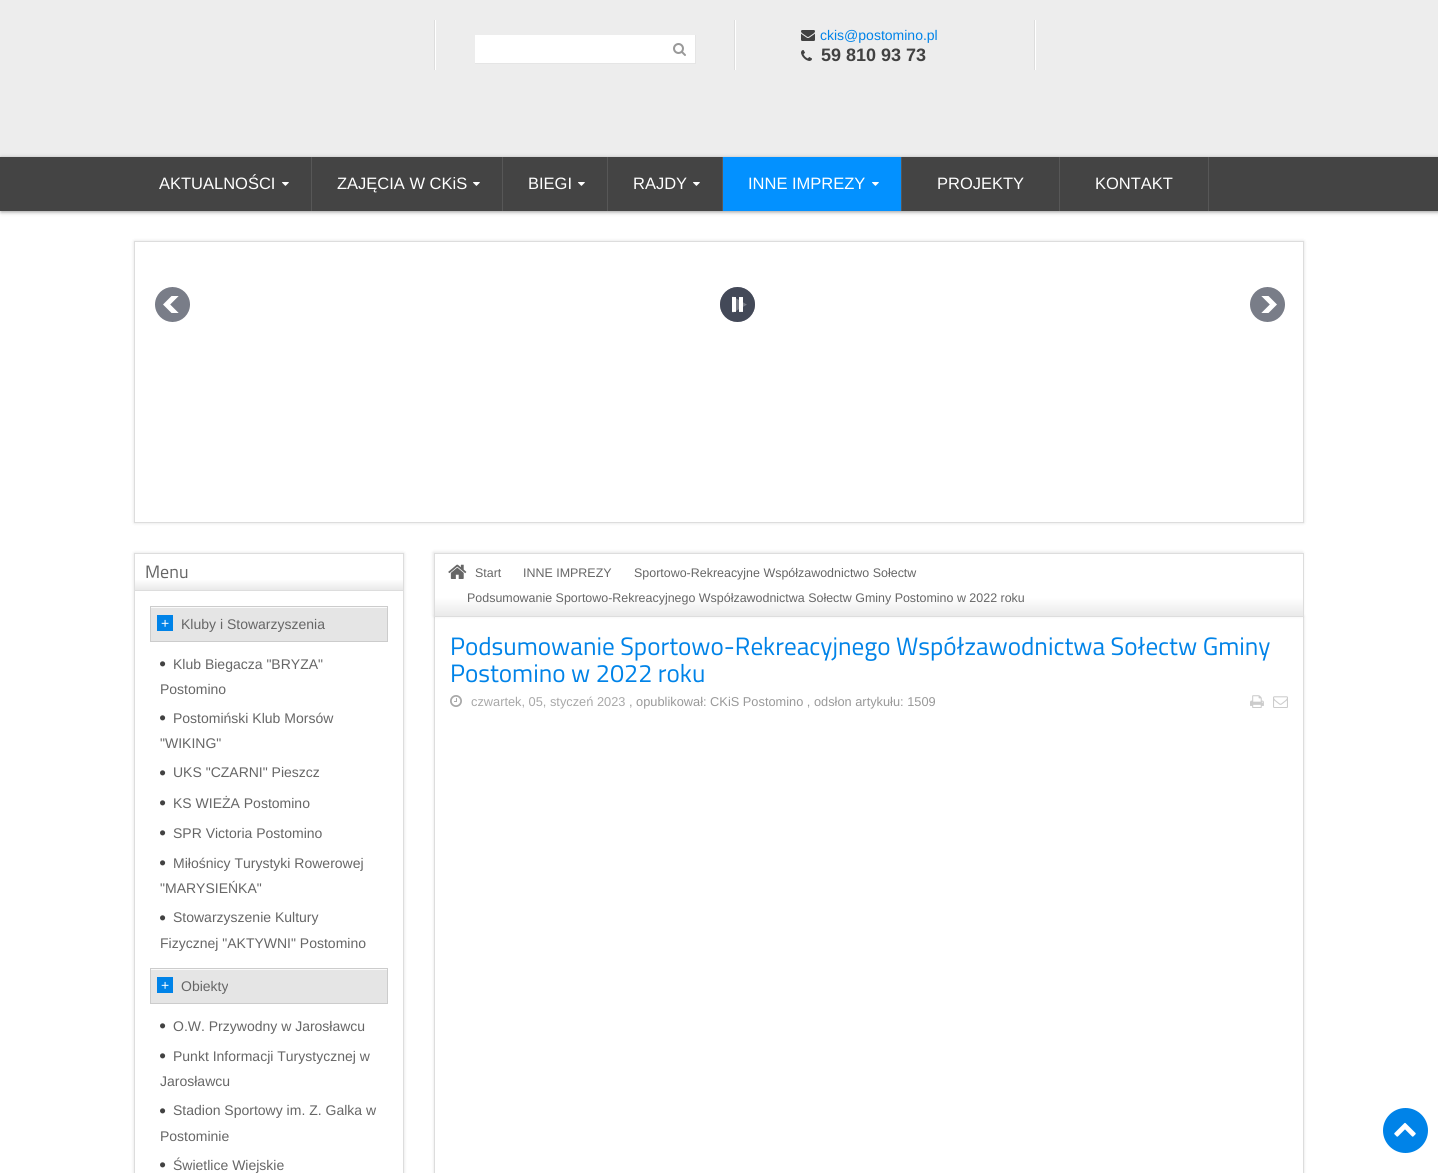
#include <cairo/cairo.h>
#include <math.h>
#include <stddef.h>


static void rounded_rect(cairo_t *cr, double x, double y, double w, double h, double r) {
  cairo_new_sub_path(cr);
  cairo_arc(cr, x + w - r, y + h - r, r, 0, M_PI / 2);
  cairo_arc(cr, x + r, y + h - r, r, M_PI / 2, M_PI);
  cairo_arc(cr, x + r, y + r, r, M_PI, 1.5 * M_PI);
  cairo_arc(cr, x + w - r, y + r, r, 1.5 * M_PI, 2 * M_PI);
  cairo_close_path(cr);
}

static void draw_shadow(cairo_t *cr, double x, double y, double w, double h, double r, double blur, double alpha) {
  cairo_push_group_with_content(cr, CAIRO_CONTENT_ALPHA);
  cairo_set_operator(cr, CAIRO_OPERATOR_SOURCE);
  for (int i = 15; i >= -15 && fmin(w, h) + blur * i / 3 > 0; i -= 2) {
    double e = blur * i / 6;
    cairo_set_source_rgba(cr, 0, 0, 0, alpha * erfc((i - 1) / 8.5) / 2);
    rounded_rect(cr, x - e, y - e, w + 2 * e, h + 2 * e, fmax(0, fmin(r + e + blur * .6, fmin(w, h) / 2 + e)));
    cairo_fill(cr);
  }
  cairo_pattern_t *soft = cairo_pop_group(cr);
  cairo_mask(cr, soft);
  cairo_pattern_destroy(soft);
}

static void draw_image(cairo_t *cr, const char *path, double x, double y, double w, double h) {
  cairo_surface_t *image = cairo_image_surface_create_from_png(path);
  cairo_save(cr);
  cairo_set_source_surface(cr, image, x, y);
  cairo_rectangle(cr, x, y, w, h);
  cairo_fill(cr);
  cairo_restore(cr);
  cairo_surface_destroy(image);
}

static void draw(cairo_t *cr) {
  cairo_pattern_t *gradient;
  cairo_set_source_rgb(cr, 1, 1, 1);
  cairo_paint(cr);
  cairo_set_source_rgb(cr, 237 / 255.0, 237 / 255.0, 237 / 255.0);
  cairo_rectangle(cr, 0, 0, 1438, 157);
  cairo_fill(cr);
  cairo_set_source_rgb(cr, 1, 1, 1);
  cairo_rectangle(cr, 435, 20, 1, 50);
  cairo_fill(cr);
  cairo_set_source_rgb(cr, 221 / 255.0, 221 / 255.0, 221 / 255.0);
  cairo_rectangle(cr, 434, 20, 1, 50);
  cairo_fill(cr);
  cairo_set_source_rgb(cr, 1, 1, 1);
  cairo_rectangle(cr, 475, 35, 220, 28);
  cairo_fill(cr);
  cairo_set_source_rgb(cr, 229 / 255.0, 229 / 255.0, 229 / 255.0);
  cairo_rectangle(cr, 695, 35, 1, 29);
  cairo_fill(cr);
  cairo_rectangle(cr, 475, 63, 221, 1);
  cairo_fill(cr);
  draw_image(cr, "images/1.png", 673, 43, 13, 13);
  cairo_set_source_rgb(cr, 1, 1, 1);
  cairo_rectangle(cr, 735, 20, 1, 50);
  cairo_fill(cr);
  cairo_set_source_rgb(cr, 221 / 255.0, 221 / 255.0, 221 / 255.0);
  cairo_rectangle(cr, 734, 20, 1, 50);
  cairo_fill(cr);
  draw_image(cr, "images/2.png", 801, 30, 14, 11);
  draw_image(cr, "images/3.png", 801, 50, 11, 11);
  cairo_set_source_rgb(cr, 1, 1, 1);
  cairo_rectangle(cr, 1035, 20, 1, 50);
  cairo_fill(cr);
  cairo_set_source_rgb(cr, 221 / 255.0, 221 / 255.0, 221 / 255.0);
  cairo_rectangle(cr, 1034, 20, 1, 50);
  cairo_fill(cr);
  cairo_set_source_rgb(cr, 0, 0, 0);
  draw_shadow(cr, 1, 158, 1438, 54, 0, 2, 0.4);
  cairo_set_source_rgb(cr, 68 / 255.0, 68 / 255.0, 68 / 255.0);
  cairo_rectangle(cr, 0, 157, 1438, 54);
  cairo_fill(cr);
  cairo_set_source_rgb(cr, 87 / 255.0, 87 / 255.0, 87 / 255.0);
  cairo_rectangle(cr, 311, 157, 1, 54);
  cairo_fill(cr);
  draw_image(cr, "images/4.png", 282, 182, 7, 4);
  cairo_rectangle(cr, 502, 157, 1, 54);
  cairo_fill(cr);
  draw_image(cr, "images/4.png", 473, 182, 7, 4);
  cairo_rectangle(cr, 607, 157, 1, 54);
  cairo_fill(cr);
  draw_image(cr, "images/4.png", 578, 182, 7, 4);
  cairo_rectangle(cr, 722, 157, 1, 54);
  cairo_fill(cr);
  draw_image(cr, "images/4.png", 693, 182, 7, 4);
  cairo_set_source_rgb(cr, 3 / 255.0, 145 / 255.0, 1);
  cairo_rectangle(cr, 723, 157, 178, 54);
  cairo_fill(cr);
  cairo_set_source_rgb(cr, 87 / 255.0, 87 / 255.0, 87 / 255.0);
  cairo_rectangle(cr, 901, 157, 1, 54);
  cairo_fill(cr);
  draw_image(cr, "images/5.png", 872, 182, 7, 4);
  cairo_rectangle(cr, 1059, 157, 1, 54);
  cairo_fill(cr);
  cairo_rectangle(cr, 1208, 157, 1, 54);
  cairo_fill(cr);
  cairo_save(cr);
  cairo_set_fill_rule(cr, CAIRO_FILL_RULE_EVEN_ODD);
  cairo_new_path(cr);
  cairo_move_to(cr, 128, 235);
  cairo_line_to(cr, 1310, 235);
  cairo_line_to(cr, 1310, 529);
  cairo_line_to(cr, 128, 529);
  cairo_close_path(cr);
  cairo_move_to(cr, 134, 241);
  cairo_line_to(cr, 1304, 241);
  cairo_line_to(cr, 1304, 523);
  cairo_line_to(cr, 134, 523);
  cairo_close_path(cr);
  cairo_clip(cr);
  cairo_set_source_rgb(cr, 0, 0, 0);
  draw_shadow(cr, 134, 241, 1170, 282, 0, 1.5, 0.13);
  cairo_restore(cr);
  cairo_rectangle(cr, 134.5, 241.5, 1169, 281);
  cairo_set_source_rgb(cr, 221 / 255.0, 221 / 255.0, 221 / 255.0);
  cairo_set_line_width(cr, 1);
  cairo_stroke(cr);
  draw_image(cr, "images/6.png", 155, 287, 35, 35);
  draw_image(cr, "images/7.png", 720, 287, 35, 35);
  draw_image(cr, "images/8.png", 720, 287, 35, 35);
  draw_image(cr, "images/9.png", 1250, 287, 35, 35);
  cairo_save(cr);
  cairo_set_fill_rule(cr, CAIRO_FILL_RULE_EVEN_ODD);
  cairo_new_path(cr);
  cairo_move_to(cr, 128, 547);
  cairo_line_to(cr, 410, 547);
  cairo_line_to(cr, 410, 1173);
  cairo_line_to(cr, 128, 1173);
  cairo_close_path(cr);
  cairo_move_to(cr, 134, 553);
  cairo_line_to(cr, 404, 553);
  cairo_line_to(cr, 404, 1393);
  cairo_line_to(cr, 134, 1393);
  cairo_close_path(cr);
  cairo_clip(cr);
  cairo_set_source_rgb(cr, 0, 0, 0);
  draw_shadow(cr, 134, 553, 270, 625, 0, 1.5, 0.13);
  cairo_restore(cr);
  cairo_rectangle(cr, 134.5, 553.5, 269, 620);
  cairo_stroke(cr);
  gradient = cairo_pattern_create_linear(269, 554, 269, 590);
  cairo_pattern_add_color_stop_rgba(gradient, 0, 1, 1, 1, 1);
  cairo_pattern_add_color_stop_rgba(gradient, 0.7, 1, 1, 1, 1);
  cairo_pattern_add_color_stop_rgba(gradient, 1, 233 / 255.0, 233 / 255.0, 233 / 255.0, 1);
  cairo_set_source(cr, gradient);
  cairo_pattern_destroy(gradient);
  cairo_rectangle(cr, 135, 580, 268, 10);
  cairo_fill(cr);
  cairo_set_source_rgb(cr, 221 / 255.0, 221 / 255.0, 221 / 255.0);
  cairo_rectangle(cr, 135, 590, 268, 1);
  cairo_fill(cr);
  cairo_set_source_rgb(cr, 229 / 255.0, 229 / 255.0, 229 / 255.0);
  cairo_rectangle(cr, 151, 608, 236, 33);
  cairo_fill(cr);
  cairo_set_source_rgb(cr, 250 / 255.0, 250 / 255.0, 250 / 255.0);
  cairo_rectangle(cr, 151, 607, 236, 1);
  cairo_fill(cr);
  cairo_rectangle(cr, 150.5, 606.5, 237, 35);
  cairo_set_source_rgb(cr, 204 / 255.0, 204 / 255.0, 204 / 255.0);
  cairo_stroke(cr);
  cairo_set_source_rgb(cr, 0, 131 / 255.0, 232 / 255.0);
  cairo_rectangle(cr, 157, 615, 16, 16);
  cairo_fill(cr);
  draw_image(cr, "images/10.png", 160, 661, 6, 6);
  draw_image(cr, "images/10.png", 160, 715, 6, 6);
  draw_image(cr, "images/10.png", 160, 770, 6, 6);
  draw_image(cr, "images/10.png", 160, 800, 6, 6);
  draw_image(cr, "images/10.png", 160, 830, 6, 6);
  draw_image(cr, "images/10.png", 160, 860, 6, 6);
  draw_image(cr, "images/10.png", 160, 915, 6, 6);
  cairo_set_source_rgb(cr, 229 / 255.0, 229 / 255.0, 229 / 255.0);
  cairo_rectangle(cr, 151, 970, 236, 33);
  cairo_fill(cr);
  cairo_set_source_rgb(cr, 250 / 255.0, 250 / 255.0, 250 / 255.0);
  cairo_rectangle(cr, 151, 969, 236, 1);
  cairo_fill(cr);
  cairo_rectangle(cr, 150.5, 968.5, 237, 35);
  cairo_set_source_rgb(cr, 204 / 255.0, 204 / 255.0, 204 / 255.0);
  cairo_stroke(cr);
  cairo_set_source_rgb(cr, 0, 131 / 255.0, 232 / 255.0);
  cairo_rectangle(cr, 157, 977, 16, 16);
  cairo_fill(cr);
  draw_image(cr, "images/10.png", 160, 1023, 6, 6);
  draw_image(cr, "images/10.png", 160, 1053, 6, 6);
  draw_image(cr, "images/10.png", 160, 1108, 6, 6);
  draw_image(cr, "images/10.png", 160, 1162, 6, 6);
  cairo_save(cr);
  cairo_set_fill_rule(cr, CAIRO_FILL_RULE_EVEN_ODD);
  cairo_new_path(cr);
  cairo_move_to(cr, 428, 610);
  cairo_line_to(cr, 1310, 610);
  cairo_line_to(cr, 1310, 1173);
  cairo_line_to(cr, 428, 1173);
  cairo_close_path(cr);
  cairo_move_to(cr, 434, 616);
  cairo_line_to(cr, 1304, 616);
  cairo_line_to(cr, 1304, 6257);
  cairo_line_to(cr, 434, 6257);
  cairo_close_path(cr);
  cairo_clip(cr);
  cairo_set_source_rgb(cr, 0, 0, 0);
  draw_shadow(cr, 434, 616, 870, 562, 0, 1.5, 0.12);
  cairo_restore(cr);
  cairo_rectangle(cr, 434.5, 616.5, 869, 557);
  cairo_set_source_rgb(cr, 221 / 255.0, 221 / 255.0, 221 / 255.0);
  cairo_stroke(cr);
  cairo_set_source_rgb(cr, 0, 0, 0);
  draw_shadow(cr, 433, 552, 870, 64, 0, 1.5, 0.1);
  gradient = cairo_pattern_create_linear(869, 554, 869, 616);
  cairo_pattern_add_color_stop_rgba(gradient, 0, 1, 1, 1, 1);
  cairo_pattern_add_color_stop_rgba(gradient, 0.7, 1, 1, 1, 1);
  cairo_pattern_add_color_stop_rgba(gradient, 1, 233 / 255.0, 233 / 255.0, 233 / 255.0, 1);
  cairo_set_source(cr, gradient);
  cairo_pattern_destroy(gradient);
  cairo_rectangle(cr, 435, 554, 868, 62);
  cairo_fill(cr);
  cairo_rectangle(cr, 434.5, 553.5, 869, 63);
  cairo_set_source_rgb(cr, 221 / 255.0, 221 / 255.0, 221 / 255.0);
  cairo_stroke(cr);
  draw_image(cr, "images/11.png", 448, 564, 19, 15);
  draw_image(cr, "images/12.png", 450, 695, 12, 12);
  draw_image(cr, "images/13.png", 1250, 695, 14, 13);
  draw_image(cr, "images/14.png", 1273, 696, 15, 12);
  cairo_set_source_rgb(cr, 0, 131 / 255.0, 232 / 255.0);
  cairo_arc(cr, 1405.5, 1130.5, 22.5, 0, 2 * M_PI);
  cairo_fill(cr);
  draw_image(cr, "images/15.png", 1394, 1122, 22, 15);
  cairo_select_font_face(cr, "Liberation Sans", CAIRO_FONT_SLANT_NORMAL, CAIRO_FONT_WEIGHT_NORMAL);
  cairo_set_font_size(cr, 14);
  cairo_move_to(cr, 820, 40);
  cairo_show_text(cr, "ckis@postomino.pl");
  cairo_select_font_face(cr, "Liberation Sans", CAIRO_FONT_SLANT_NORMAL, CAIRO_FONT_WEIGHT_BOLD);
  cairo_set_font_size(cr, 18);
  cairo_set_source_rgb(cr, 66 / 255.0, 66 / 255.0, 66 / 255.0);
  cairo_move_to(cr, 821, 61);
  cairo_show_text(cr, "59 810 93 73");
  cairo_select_font_face(cr, "Liberation Sans", CAIRO_FONT_SLANT_NORMAL, CAIRO_FONT_WEIGHT_NORMAL);
  cairo_set_font_size(cr, 16.5);
  cairo_set_source_rgb(cr, 1, 1, 1);
  cairo_move_to(cr, 159, 189);
  cairo_show_text(cr, "AKTUALNOŚCI");
  cairo_move_to(cr, 337, 189);
  cairo_show_text(cr, "ZAJĘCIA W CKiS");
  cairo_move_to(cr, 528, 189);
  cairo_show_text(cr, "BIEGI");
  cairo_move_to(cr, 633, 189);
  cairo_show_text(cr, "RAJDY");
  cairo_move_to(cr, 748, 189);
  cairo_show_text(cr, "INNE IMPREZY");
  cairo_move_to(cr, 937, 189);
  cairo_show_text(cr, "PROJEKTY");
  cairo_move_to(cr, 1095, 189);
  cairo_show_text(cr, "KONTAKT");
  cairo_select_font_face(cr, "Titillium Web", CAIRO_FONT_SLANT_NORMAL, CAIRO_FONT_WEIGHT_NORMAL);
  cairo_set_font_size(cr, 18);
  cairo_set_source_rgb(cr, 102 / 255.0, 102 / 255.0, 102 / 255.0);
  cairo_move_to(cr, 145, 578);
  cairo_show_text(cr, "Menu");
  cairo_select_font_face(cr, "Liberation Sans", CAIRO_FONT_SLANT_NORMAL, CAIRO_FONT_WEIGHT_NORMAL);
  cairo_set_font_size(cr, 14);
  cairo_set_source_rgb(cr, 1, 1, 1);
  cairo_move_to(cr, 161, 628);
  cairo_show_text(cr, "+");
  cairo_set_source_rgb(cr, 102 / 255.0, 102 / 255.0, 102 / 255.0);
  cairo_move_to(cr, 181, 629);
  cairo_show_text(cr, "Kluby i Stowarzyszenia");
  cairo_move_to(cr, 173, 669);
  cairo_show_text(cr, "Klub Biegacza \"BRYZA\"");
  cairo_move_to(cr, 160, 694);
  cairo_show_text(cr, "Postomino");
  cairo_move_to(cr, 173, 723);
  cairo_show_text(cr, "Postomiński Klub Morsów");
  cairo_move_to(cr, 160, 748);
  cairo_show_text(cr, "\"WIKING\"");
  cairo_move_to(cr, 173, 777);
  cairo_show_text(cr, "UKS \"CZARNI\" Pieszcz");
  cairo_move_to(cr, 173, 808);
  cairo_show_text(cr, "KS WIEŻA Postomino");
  cairo_move_to(cr, 173, 838);
  cairo_show_text(cr, "SPR Victoria Postomino");
  cairo_move_to(cr, 173, 868);
  cairo_show_text(cr, "Miłośnicy Turystyki Rowerowej");
  cairo_move_to(cr, 160, 893);
  cairo_show_text(cr, "\"MARYSIEŃKA\"");
  cairo_move_to(cr, 173, 922);
  cairo_show_text(cr, "Stowarzyszenie Kultury");
  cairo_move_to(cr, 160, 948);
  cairo_show_text(cr, "Fizycznej \"AKTYWNI\" Postomino");
  cairo_set_source_rgb(cr, 1, 1, 1);
  cairo_move_to(cr, 161, 990);
  cairo_show_text(cr, "+");
  cairo_set_source_rgb(cr, 102 / 255.0, 102 / 255.0, 102 / 255.0);
  cairo_move_to(cr, 181, 991);
  cairo_show_text(cr, "Obiekty");
  cairo_move_to(cr, 173, 1031);
  cairo_show_text(cr, "O.W. Przywodny w Jarosławcu");
  cairo_move_to(cr, 173, 1061);
  cairo_show_text(cr, "Punkt Informacji Turystycznej w");
  cairo_move_to(cr, 160, 1086);
  cairo_show_text(cr, "Jarosławcu");
  cairo_move_to(cr, 173, 1115);
  cairo_show_text(cr, "Stadion Sportowy im. Z. Galka w");
  cairo_move_to(cr, 160, 1141);
  cairo_show_text(cr, "Postominie");
  cairo_move_to(cr, 173, 1170);
  cairo_show_text(cr, "Świetlice Wiejskie");
  cairo_set_font_size(cr, 12.45);
  cairo_move_to(cr, 475, 577);
  cairo_show_text(cr, "Start");
  cairo_move_to(cr, 523, 577);
  cairo_show_text(cr, "INNE IMPREZY");
  cairo_move_to(cr, 634, 577);
  cairo_show_text(cr, "Sportowo-Rekreacyjne Współzawodnictwo Sołectw");
  cairo_move_to(cr, 467, 602);
  cairo_show_text(cr, "Podsumowanie Sportowo-Rekreacyjnego Współzawodnictwa Sołectw Gminy Postomino w 2022 roku");
  cairo_select_font_face(cr, "Titillium Web", CAIRO_FONT_SLANT_NORMAL, CAIRO_FONT_WEIGHT_NORMAL);
  cairo_set_font_size(cr, 25.2);
  cairo_set_source_rgb(cr, 0, 131 / 255.0, 232 / 255.0);
  cairo_move_to(cr, 450, 655);
  cairo_show_text(cr, "Podsumowanie Sportowo-Rekreacyjnego Współzawodnictwa Sołectw Gminy");
  cairo_move_to(cr, 450, 682);
  cairo_show_text(cr, "Postomino w 2022 roku");
  cairo_select_font_face(cr, "Liberation Sans", CAIRO_FONT_SLANT_NORMAL, CAIRO_FONT_WEIGHT_NORMAL);
  cairo_set_font_size(cr, 12.8);
  cairo_set_source_rgb(cr, 168 / 255.0, 168 / 255.0, 168 / 255.0);
  cairo_move_to(cr, 471, 706);
  cairo_show_text(cr, "czwartek, 05, styczeń 2023");
  cairo_set_source_rgb(cr, 153 / 255.0, 153 / 255.0, 153 / 255.0);
  cairo_move_to(cr, 629, 706);
  cairo_show_text(cr, ", opublikował: CKiS Postomino , odsłon artykułu: 1509");
}

int main(void) {
  cairo_surface_t *surface = cairo_image_surface_create(CAIRO_FORMAT_RGB24, 1438, 1173);
  cairo_t *cr = cairo_create(surface);
  cairo_font_options_t *options = cairo_font_options_create();
  cairo_font_options_set_hint_metrics(options, CAIRO_HINT_METRICS_OFF);
  cairo_font_options_set_hint_style(options, CAIRO_HINT_STYLE_NONE);
  cairo_set_font_options(cr, options);
  cairo_set_miter_limit(cr, 4);
  draw(cr);
  cairo_surface_write_to_png(surface, "out.png");
  cairo_font_options_destroy(options);
  cairo_destroy(cr);
  cairo_surface_destroy(surface);
  return 0;
}
